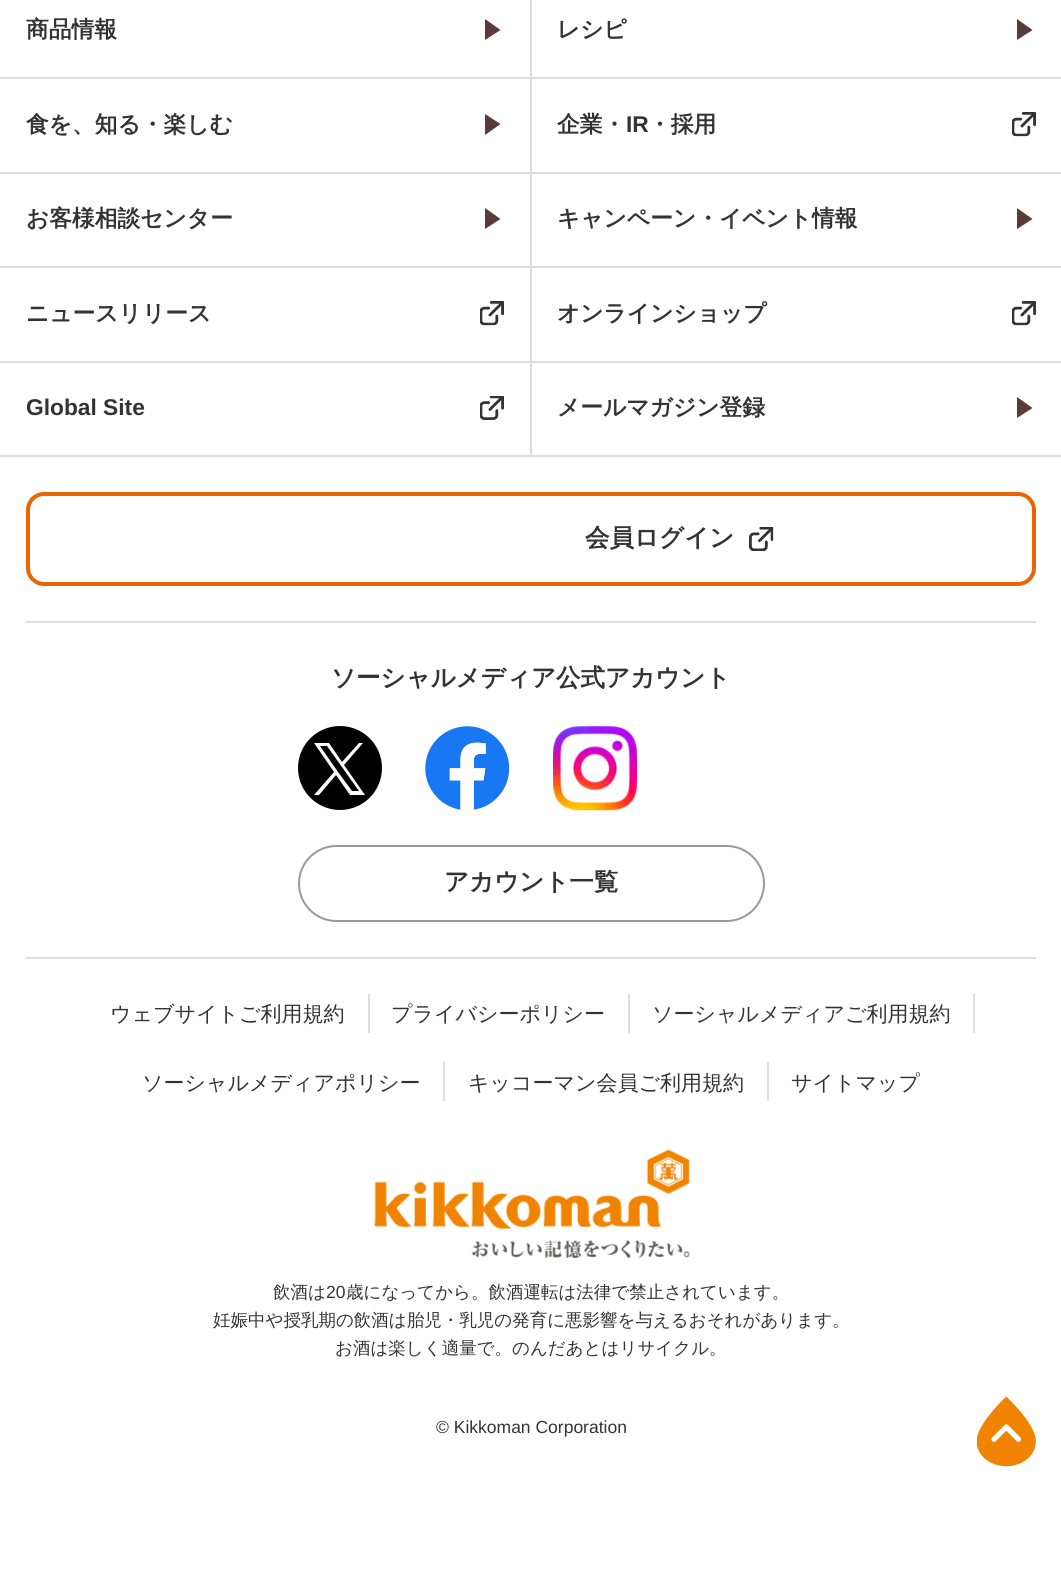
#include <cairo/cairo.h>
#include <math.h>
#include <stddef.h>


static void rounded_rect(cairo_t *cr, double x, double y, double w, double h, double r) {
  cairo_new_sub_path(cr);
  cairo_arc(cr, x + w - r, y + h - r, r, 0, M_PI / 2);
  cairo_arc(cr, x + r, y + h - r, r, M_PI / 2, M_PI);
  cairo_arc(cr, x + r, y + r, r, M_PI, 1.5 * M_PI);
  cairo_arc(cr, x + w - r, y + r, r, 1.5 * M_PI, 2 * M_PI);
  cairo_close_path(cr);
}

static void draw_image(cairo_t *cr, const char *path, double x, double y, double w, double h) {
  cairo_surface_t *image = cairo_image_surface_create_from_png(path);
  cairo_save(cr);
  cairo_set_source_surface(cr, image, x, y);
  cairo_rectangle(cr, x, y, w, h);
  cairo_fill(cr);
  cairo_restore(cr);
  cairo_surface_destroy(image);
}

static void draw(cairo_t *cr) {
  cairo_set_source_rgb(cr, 1, 1, 1);
  cairo_paint(cr);
  cairo_set_source_rgb(cr, 221 / 255.0, 221 / 255.0, 221 / 255.0);
  cairo_rectangle(cr, 0, 455, 1061, 2);
  cairo_fill(cr);
  cairo_set_source_rgb(cr, 90 / 255.0, 58 / 255.0, 58 / 255.0);
  cairo_new_path(cr);
  cairo_move_to(cr, 485, 40);
  cairo_line_to(cr, 485, 19);
  cairo_line_to(cr, 500.5, 30);
  cairo_close_path(cr);
  cairo_fill(cr);
  cairo_set_source_rgb(cr, 221 / 255.0, 221 / 255.0, 221 / 255.0);
  cairo_rectangle(cr, 530, 0, 2, 77);
  cairo_fill(cr);
  cairo_set_source_rgb(cr, 90 / 255.0, 58 / 255.0, 58 / 255.0);
  cairo_new_path(cr);
  cairo_move_to(cr, 1017, 40);
  cairo_line_to(cr, 1017, 19);
  cairo_line_to(cr, 1032.5, 30);
  cairo_close_path(cr);
  cairo_fill(cr);
  cairo_set_source_rgb(cr, 221 / 255.0, 221 / 255.0, 221 / 255.0);
  cairo_rectangle(cr, 0, 77, 1061, 2);
  cairo_fill(cr);
  cairo_set_source_rgb(cr, 90 / 255.0, 58 / 255.0, 58 / 255.0);
  cairo_new_path(cr);
  cairo_move_to(cr, 485, 135);
  cairo_line_to(cr, 485, 114);
  cairo_line_to(cr, 500.5, 124);
  cairo_close_path(cr);
  cairo_fill(cr);
  cairo_set_source_rgb(cr, 221 / 255.0, 221 / 255.0, 221 / 255.0);
  cairo_rectangle(cr, 530, 77, 2, 95);
  cairo_fill(cr);
  draw_image(cr, "images/1.png", 1012, 112, 24, 25);
  cairo_rectangle(cr, 0, 172, 1061, 2);
  cairo_fill(cr);
  cairo_set_source_rgb(cr, 90 / 255.0, 58 / 255.0, 58 / 255.0);
  cairo_new_path(cr);
  cairo_move_to(cr, 485, 229);
  cairo_line_to(cr, 485, 208);
  cairo_line_to(cr, 500.5, 219);
  cairo_close_path(cr);
  cairo_fill(cr);
  cairo_set_source_rgb(cr, 221 / 255.0, 221 / 255.0, 221 / 255.0);
  cairo_rectangle(cr, 530, 172, 2, 94);
  cairo_fill(cr);
  cairo_set_source_rgb(cr, 90 / 255.0, 58 / 255.0, 58 / 255.0);
  cairo_new_path(cr);
  cairo_move_to(cr, 1017, 229);
  cairo_line_to(cr, 1017, 208);
  cairo_line_to(cr, 1032.5, 219);
  cairo_close_path(cr);
  cairo_fill(cr);
  cairo_set_source_rgb(cr, 221 / 255.0, 221 / 255.0, 221 / 255.0);
  cairo_rectangle(cr, 0, 266, 1061, 2);
  cairo_fill(cr);
  draw_image(cr, "images/2.png", 480, 301, 24, 25);
  cairo_rectangle(cr, 530, 266, 2, 95);
  cairo_fill(cr);
  draw_image(cr, "images/1.png", 1012, 301, 24, 25);
  cairo_rectangle(cr, 0, 361, 1061, 2);
  cairo_fill(cr);
  draw_image(cr, "images/3.png", 480, 396, 24, 24);
  cairo_rectangle(cr, 530, 361, 2, 94);
  cairo_fill(cr);
  cairo_set_source_rgb(cr, 90 / 255.0, 58 / 255.0, 58 / 255.0);
  cairo_new_path(cr);
  cairo_move_to(cr, 1017, 418);
  cairo_line_to(cr, 1017, 397);
  cairo_line_to(cr, 1032.5, 408);
  cairo_close_path(cr);
  cairo_fill(cr);
  rounded_rect(cr, 28, 494, 1006, 90, 16);
  cairo_set_source_rgb(cr, 233 / 255.0, 102 / 255.0, 0);
  cairo_set_line_width(cr, 4);
  cairo_stroke(cr);
  draw_image(cr, "images/4.png", 749, 527, 25, 24);
  cairo_set_source_rgb(cr, 221 / 255.0, 221 / 255.0, 221 / 255.0);
  cairo_rectangle(cr, 26, 621, 1010, 2);
  cairo_fill(cr);
  cairo_rectangle(cr, 26, 957, 1010, 2);
  cairo_fill(cr);
  cairo_set_source_rgb(cr, 0, 0, 0);
  cairo_arc(cr, 340, 768, 42, 0, 2 * M_PI);
  cairo_fill(cr);
  cairo_set_source_rgb(cr, 1, 1, 1);
  cairo_new_path(cr);
  cairo_move_to(cr, 344, 765);
  cairo_line_to(cr, 363, 743);
  cairo_line_to(cr, 359, 743);
  cairo_line_to(cr, 342, 762);
  cairo_line_to(cr, 329, 743);
  cairo_line_to(cr, 314, 743);
  cairo_line_to(cr, 334, 772);
  cairo_line_to(cr, 314, 795);
  cairo_line_to(cr, 319, 795);
  cairo_line_to(cr, 336, 775);
  cairo_line_to(cr, 350, 795);
  cairo_line_to(cr, 365, 795);
  cairo_close_path(cr);
  cairo_move_to(cr, 338, 772);
  cairo_line_to(cr, 320, 746);
  cairo_line_to(cr, 327, 746);
  cairo_line_to(cr, 359, 791);
  cairo_line_to(cr, 352, 791);
  cairo_close_path(cr);
  cairo_fill(cr);
  draw_image(cr, "images/5.png", 425, 726, 84, 84);
  draw_image(cr, "images/6.png", 553, 726, 84, 85);
  rounded_rect(cr, 299, 846, 465, 75, 37.5);
  cairo_set_source_rgb(cr, 153 / 255.0, 153 / 255.0, 153 / 255.0);
  cairo_set_line_width(cr, 2);
  cairo_stroke(cr);
  cairo_set_source_rgb(cr, 221 / 255.0, 221 / 255.0, 221 / 255.0);
  cairo_rectangle(cr, 368, 994, 2, 39);
  cairo_fill(cr);
  cairo_rectangle(cr, 628, 994, 2, 39);
  cairo_fill(cr);
  cairo_rectangle(cr, 973, 994, 2, 39);
  cairo_fill(cr);
  cairo_rectangle(cr, 443, 1062, 2, 39);
  cairo_fill(cr);
  cairo_rectangle(cr, 767, 1062, 2, 39);
  cairo_fill(cr);
  draw_image(cr, "images/7.png", 374, 1149, 316, 110);
  draw_image(cr, "images/8.png", 977, 1397, 59, 70);
  cairo_select_font_face(cr, "WenQuanYi Zen Hei", CAIRO_FONT_SLANT_NORMAL, CAIRO_FONT_WEIGHT_BOLD);
  cairo_set_font_size(cr, 22.75);
  cairo_set_source_rgb(cr, 51 / 255.0, 51 / 255.0, 51 / 255.0);
  cairo_move_to(cr, 26, 37);
  cairo_show_text(cr, "商品情報");
  cairo_move_to(cr, 557, 37);
  cairo_show_text(cr, "レシピ");
  cairo_move_to(cr, 26, 132);
  cairo_show_text(cr, "食を、知る・楽しむ");
  cairo_move_to(cr, 557, 132);
  cairo_show_text(cr, "企業・");
  cairo_select_font_face(cr, "Liberation Sans", CAIRO_FONT_SLANT_NORMAL, CAIRO_FONT_WEIGHT_BOLD);
  cairo_move_to(cr, 626, 132);
  cairo_show_text(cr, "IR");
  cairo_select_font_face(cr, "WenQuanYi Zen Hei", CAIRO_FONT_SLANT_NORMAL, CAIRO_FONT_WEIGHT_BOLD);
  cairo_move_to(cr, 648, 132);
  cairo_show_text(cr, "・採用");
  cairo_move_to(cr, 26, 226);
  cairo_show_text(cr, "お客様相談センター");
  cairo_move_to(cr, 557, 226);
  cairo_show_text(cr, "キャンペーン・イベント情報");
  cairo_move_to(cr, 26, 321);
  cairo_show_text(cr, "ニュースリリース");
  cairo_move_to(cr, 557, 321);
  cairo_show_text(cr, "オンラインショップ");
  cairo_select_font_face(cr, "Liberation Sans", CAIRO_FONT_SLANT_NORMAL, CAIRO_FONT_WEIGHT_BOLD);
  cairo_move_to(cr, 26, 415);
  cairo_show_text(cr, "Global Site");
  cairo_select_font_face(cr, "WenQuanYi Zen Hei", CAIRO_FONT_SLANT_NORMAL, CAIRO_FONT_WEIGHT_BOLD);
  cairo_move_to(cr, 557, 415);
  cairo_show_text(cr, "メールマガジン登録");
  cairo_set_font_size(cr, 24.5);
  cairo_move_to(cr, 585, 546);
  cairo_show_text(cr, "会員ログイン");
  cairo_move_to(cr, 331, 686);
  cairo_show_text(cr, "ソーシャルメディア公式アカウント");
  cairo_move_to(cr, 444, 890);
  cairo_show_text(cr, "アカウント一覧");
  cairo_select_font_face(cr, "WenQuanYi Zen Hei Medium", CAIRO_FONT_SLANT_NORMAL, CAIRO_FONT_WEIGHT_NORMAL);
  cairo_set_font_size(cr, 21);
  cairo_move_to(cr, 110, 1021);
  cairo_show_text(cr, "ウェブサイトご利用規約");
  cairo_move_to(cr, 391, 1021);
  cairo_show_text(cr, "プライバシーポリシー");
  cairo_move_to(cr, 652, 1021);
  cairo_show_text(cr, "ソーシャルメディアご利用規約");
  cairo_move_to(cr, 142, 1090);
  cairo_show_text(cr, "ソーシャルメディアポリシー");
  cairo_move_to(cr, 468, 1090);
  cairo_show_text(cr, "キッコーマン会員ご利用規約");
  cairo_move_to(cr, 791, 1090);
  cairo_show_text(cr, "サイトマップ");
  cairo_set_font_size(cr, 17.5);
  cairo_move_to(cr, 273, 1298);
  cairo_show_text(cr, "飲酒は");
  cairo_select_font_face(cr, "Liberation Sans", CAIRO_FONT_SLANT_NORMAL, CAIRO_FONT_WEIGHT_NORMAL);
  cairo_move_to(cr, 326, 1298);
  cairo_show_text(cr, "20");
  cairo_select_font_face(cr, "WenQuanYi Zen Hei Medium", CAIRO_FONT_SLANT_NORMAL, CAIRO_FONT_WEIGHT_NORMAL);
  cairo_move_to(cr, 346, 1298);
  cairo_show_text(cr, "歳になってから。飲酒運転は法律で禁止されています。");
  cairo_move_to(cr, 213, 1326);
  cairo_show_text(cr, "妊娠中や授乳期の飲酒は胎児・乳児の発育に悪影響を与えるおそれがあります。");
  cairo_move_to(cr, 335, 1354);
  cairo_show_text(cr, "お酒は楽しく適量で。のんだあとはリサイクル。");
  cairo_select_font_face(cr, "Liberation Sans", CAIRO_FONT_SLANT_NORMAL, CAIRO_FONT_WEIGHT_NORMAL);
  cairo_move_to(cr, 436, 1433);
  cairo_show_text(cr, "© Kikkoman Corporation");
}

int main(void) {
  cairo_surface_t *surface = cairo_image_surface_create(CAIRO_FORMAT_RGB24, 1061, 1575);
  cairo_t *cr = cairo_create(surface);
  cairo_font_options_t *options = cairo_font_options_create();
  cairo_font_options_set_hint_metrics(options, CAIRO_HINT_METRICS_OFF);
  cairo_font_options_set_hint_style(options, CAIRO_HINT_STYLE_NONE);
  cairo_set_font_options(cr, options);
  cairo_set_miter_limit(cr, 4);
  draw(cr);
  cairo_surface_write_to_png(surface, "out.png");
  cairo_font_options_destroy(options);
  cairo_destroy(cr);
  cairo_surface_destroy(surface);
  return 0;
}
